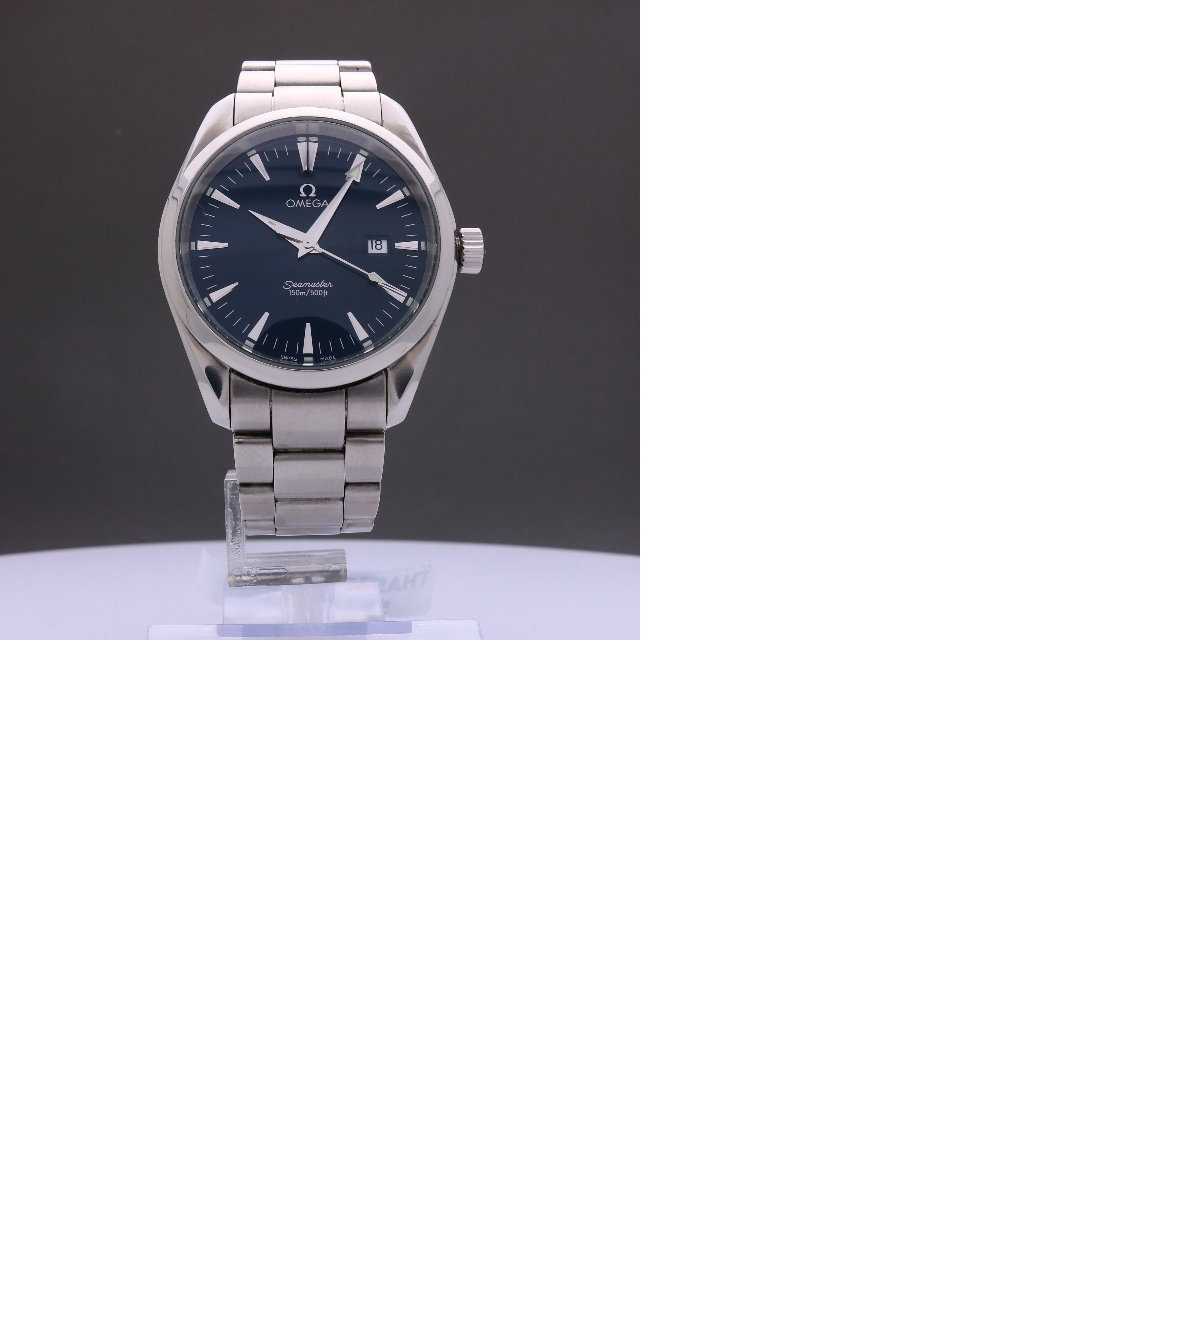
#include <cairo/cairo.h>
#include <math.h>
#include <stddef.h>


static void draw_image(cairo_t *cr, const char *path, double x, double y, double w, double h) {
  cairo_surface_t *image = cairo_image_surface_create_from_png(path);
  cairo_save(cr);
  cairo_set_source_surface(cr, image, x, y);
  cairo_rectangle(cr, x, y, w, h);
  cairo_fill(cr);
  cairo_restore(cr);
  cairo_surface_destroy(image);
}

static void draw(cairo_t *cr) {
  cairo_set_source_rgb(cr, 1, 1, 1);
  cairo_paint(cr);
  draw_image(cr, "images/1.png", 0, 0, 640, 640);
}

int main(void) {
  cairo_surface_t *surface = cairo_image_surface_create(CAIRO_FORMAT_RGB24, 1182, 1330);
  cairo_t *cr = cairo_create(surface);
  cairo_font_options_t *options = cairo_font_options_create();
  cairo_font_options_set_hint_metrics(options, CAIRO_HINT_METRICS_OFF);
  cairo_font_options_set_hint_style(options, CAIRO_HINT_STYLE_NONE);
  cairo_set_font_options(cr, options);
  cairo_set_miter_limit(cr, 4);
  draw(cr);
  cairo_surface_write_to_png(surface, "out.png");
  cairo_font_options_destroy(options);
  cairo_destroy(cr);
  cairo_surface_destroy(surface);
  return 0;
}
